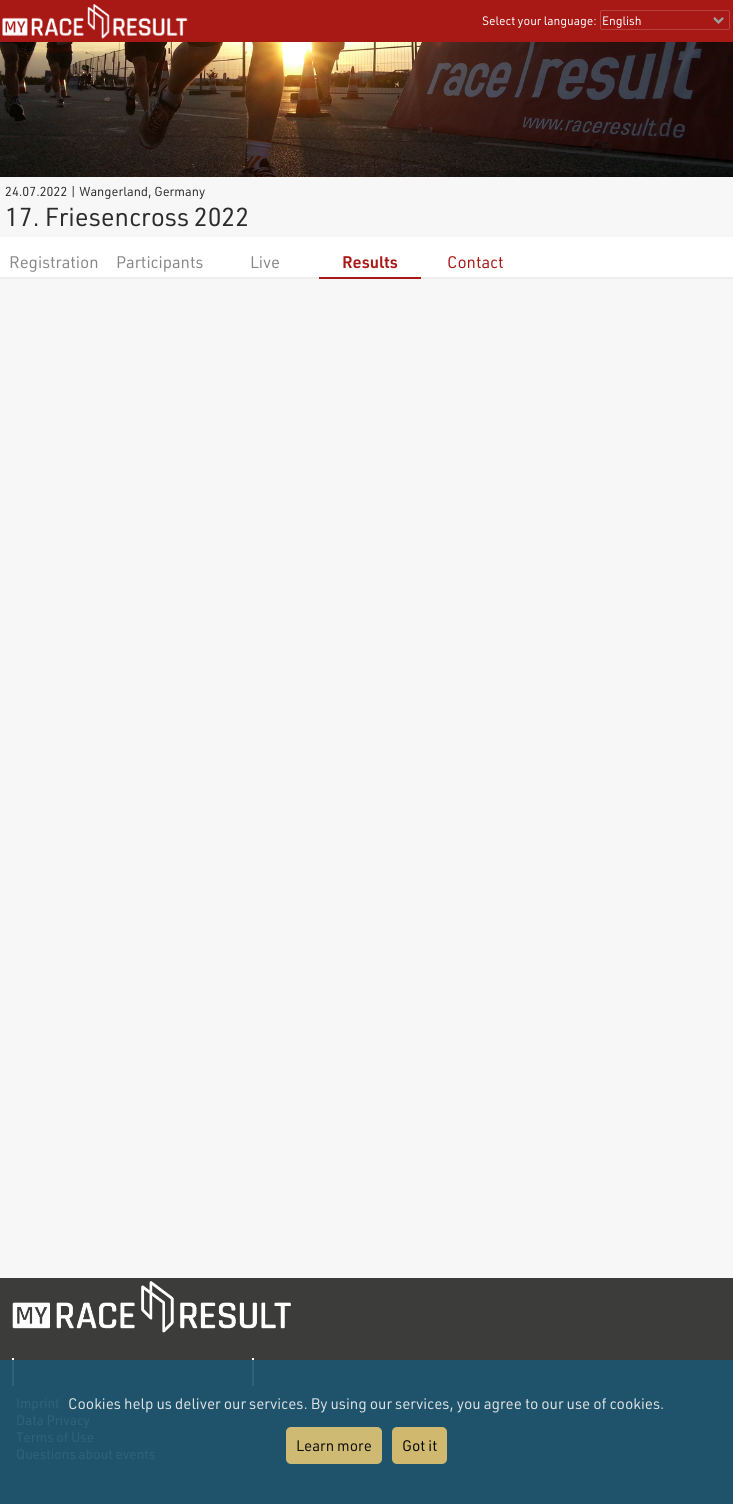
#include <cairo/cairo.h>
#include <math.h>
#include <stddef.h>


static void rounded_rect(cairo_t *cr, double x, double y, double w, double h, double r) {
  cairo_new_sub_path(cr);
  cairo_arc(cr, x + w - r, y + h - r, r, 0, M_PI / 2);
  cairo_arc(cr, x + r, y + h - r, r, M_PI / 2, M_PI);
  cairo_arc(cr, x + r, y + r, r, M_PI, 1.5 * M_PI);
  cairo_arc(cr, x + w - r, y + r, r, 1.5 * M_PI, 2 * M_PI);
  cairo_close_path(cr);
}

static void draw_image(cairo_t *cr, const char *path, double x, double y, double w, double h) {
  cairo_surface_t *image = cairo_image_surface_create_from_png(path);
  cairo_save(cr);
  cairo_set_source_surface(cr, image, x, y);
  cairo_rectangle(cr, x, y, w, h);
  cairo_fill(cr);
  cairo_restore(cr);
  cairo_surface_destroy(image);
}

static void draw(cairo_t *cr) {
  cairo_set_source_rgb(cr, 247 / 255.0, 247 / 255.0, 247 / 255.0);
  cairo_paint(cr);
  cairo_set_source_rgb(cr, 168 / 255.0, 24 / 255.0, 21 / 255.0);
  cairo_rectangle(cr, 0, 0, 733, 42);
  cairo_fill(cr);
  draw_image(cr, "images/1.png", 2, 4, 186, 35);
  draw_image(cr, "images/2.png", 713, 17, 11, 7);
  rounded_rect(cr, 600.5, 10.5, 129, 19, 1.5);
  cairo_set_source_rgb(cr, 183 / 255.0, 67 / 255.0, 64 / 255.0);
  cairo_set_line_width(cr, 1);
  cairo_stroke(cr);
  draw_image(cr, "images/3.png", 0, 42, 733, 135);
  cairo_set_source_rgb(cr, 1, 1, 1);
  cairo_rectangle(cr, 0, 237, 733, 40);
  cairo_fill(cr);
  cairo_set_source_rgb(cr, 238 / 255.0, 238 / 255.0, 238 / 255.0);
  cairo_rectangle(cr, 0, 277, 733, 2);
  cairo_fill(cr);
  cairo_set_source_rgb(cr, 168 / 255.0, 24 / 255.0, 21 / 255.0);
  cairo_rectangle(cr, 319, 277, 102, 2);
  cairo_fill(cr);
  cairo_set_source_rgb(cr, 60 / 255.0, 60 / 255.0, 59 / 255.0);
  cairo_rectangle(cr, 0, 1278, 733, 82);
  cairo_fill(cr);
  cairo_set_source_rgb(cr, 31 / 255.0, 82 / 255.0, 107 / 255.0);
  cairo_rectangle(cr, 0, 1360, 733, 144);
  cairo_fill(cr);
  draw_image(cr, "images/4.png", 12, 1281, 279, 52);
  cairo_set_source_rgb(cr, 1, 1, 1);
  cairo_rectangle(cr, 252, 1358, 2, 2);
  cairo_fill(cr);
  cairo_set_source_rgb(cr, 47 / 255.0, 98 / 255.0, 123 / 255.0);
  cairo_rectangle(cr, 252, 1360, 2, 26);
  cairo_fill(cr);
  cairo_set_source_rgb(cr, 1, 1, 1);
  cairo_rectangle(cr, 12, 1358, 2, 2);
  cairo_fill(cr);
  cairo_set_source_rgb(cr, 47 / 255.0, 98 / 255.0, 123 / 255.0);
  cairo_rectangle(cr, 12, 1360, 2, 26);
  cairo_fill(cr);
  cairo_set_source_rgba(cr, 221 / 255.0, 195 / 255.0, 116 / 255.0, 0.92);
  rounded_rect(cr, 286, 1427, 96, 37, 5);
  cairo_fill(cr);
  cairo_set_source_rgb(cr, 208 / 255.0, 184 / 255.0, 111 / 255.0);
  rounded_rect(cr, 392, 1427, 55, 37, 5);
  cairo_fill(cr);
  cairo_select_font_face(cr, "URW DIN", CAIRO_FONT_SLANT_NORMAL, CAIRO_FONT_WEIGHT_NORMAL);
  cairo_set_font_size(cr, 12);
  cairo_set_source_rgb(cr, 1, 1, 1);
  cairo_move_to(cr, 482, 25);
  cairo_show_text(cr, "Select your language:");
  cairo_move_to(cr, 602, 25);
  cairo_show_text(cr, "English");
  cairo_set_font_size(cr, 12.75);
  cairo_set_source_rgb(cr, 44 / 255.0, 44 / 255.0, 44 / 255.0);
  cairo_move_to(cr, 5, 196);
  cairo_show_text(cr, "24.07.2022 | Wangerland, Germany");
  cairo_set_font_size(cr, 25.5);
  cairo_move_to(cr, 5, 226);
  cairo_show_text(cr, "17. Friesencross 2022");
  cairo_set_font_size(cr, 16.5);
  cairo_set_source_rgb(cr, 136 / 255.0, 136 / 255.0, 136 / 255.0);
  cairo_move_to(cr, 9, 268);
  cairo_show_text(cr, "Registration");
  cairo_move_to(cr, 116, 268);
  cairo_show_text(cr, "Participants");
  cairo_move_to(cr, 250, 268);
  cairo_show_text(cr, "Live");
  cairo_select_font_face(cr, "URW DIN SemiBold", CAIRO_FONT_SLANT_NORMAL, CAIRO_FONT_WEIGHT_NORMAL);
  cairo_set_source_rgb(cr, 168 / 255.0, 24 / 255.0, 21 / 255.0);
  cairo_move_to(cr, 342, 268);
  cairo_show_text(cr, "Results");
  cairo_select_font_face(cr, "URW DIN", CAIRO_FONT_SLANT_NORMAL, CAIRO_FONT_WEIGHT_NORMAL);
  cairo_move_to(cr, 447, 268);
  cairo_show_text(cr, "Contact");
  cairo_set_font_size(cr, 13.5);
  cairo_set_source_rgb(cr, 47 / 255.0, 98 / 255.0, 123 / 255.0);
  cairo_move_to(cr, 16, 1408);
  cairo_show_text(cr, "Imprint");
  cairo_move_to(cr, 16, 1425);
  cairo_show_text(cr, "Data Privacy");
  cairo_move_to(cr, 16, 1442);
  cairo_show_text(cr, "Terms of Use");
  cairo_move_to(cr, 16, 1459);
  cairo_show_text(cr, "Questions about events");
  cairo_set_font_size(cr, 15);
  cairo_set_source_rgb(cr, 222 / 255.0, 226 / 255.0, 228 / 255.0);
  cairo_move_to(cr, 68, 1409);
  cairo_show_text(cr, "Cookies help us deliver our services. By using our services, you agree to our use of cookies.");
  cairo_set_source_rgb(cr, 16 / 255.0, 15 / 255.0, 9 / 255.0);
  cairo_move_to(cr, 296, 1451);
  cairo_show_text(cr, "Learn more");
  cairo_set_source_rgb(cr, 5 / 255.0, 5 / 255.0, 5 / 255.0);
  cairo_move_to(cr, 402, 1451);
  cairo_show_text(cr, "Got it");
}

int main(void) {
  cairo_surface_t *surface = cairo_image_surface_create(CAIRO_FORMAT_RGB24, 733, 1504);
  cairo_t *cr = cairo_create(surface);
  cairo_font_options_t *options = cairo_font_options_create();
  cairo_font_options_set_hint_metrics(options, CAIRO_HINT_METRICS_OFF);
  cairo_font_options_set_hint_style(options, CAIRO_HINT_STYLE_NONE);
  cairo_set_font_options(cr, options);
  cairo_set_miter_limit(cr, 4);
  draw(cr);
  cairo_surface_write_to_png(surface, "out.png");
  cairo_font_options_destroy(options);
  cairo_destroy(cr);
  cairo_surface_destroy(surface);
  return 0;
}
